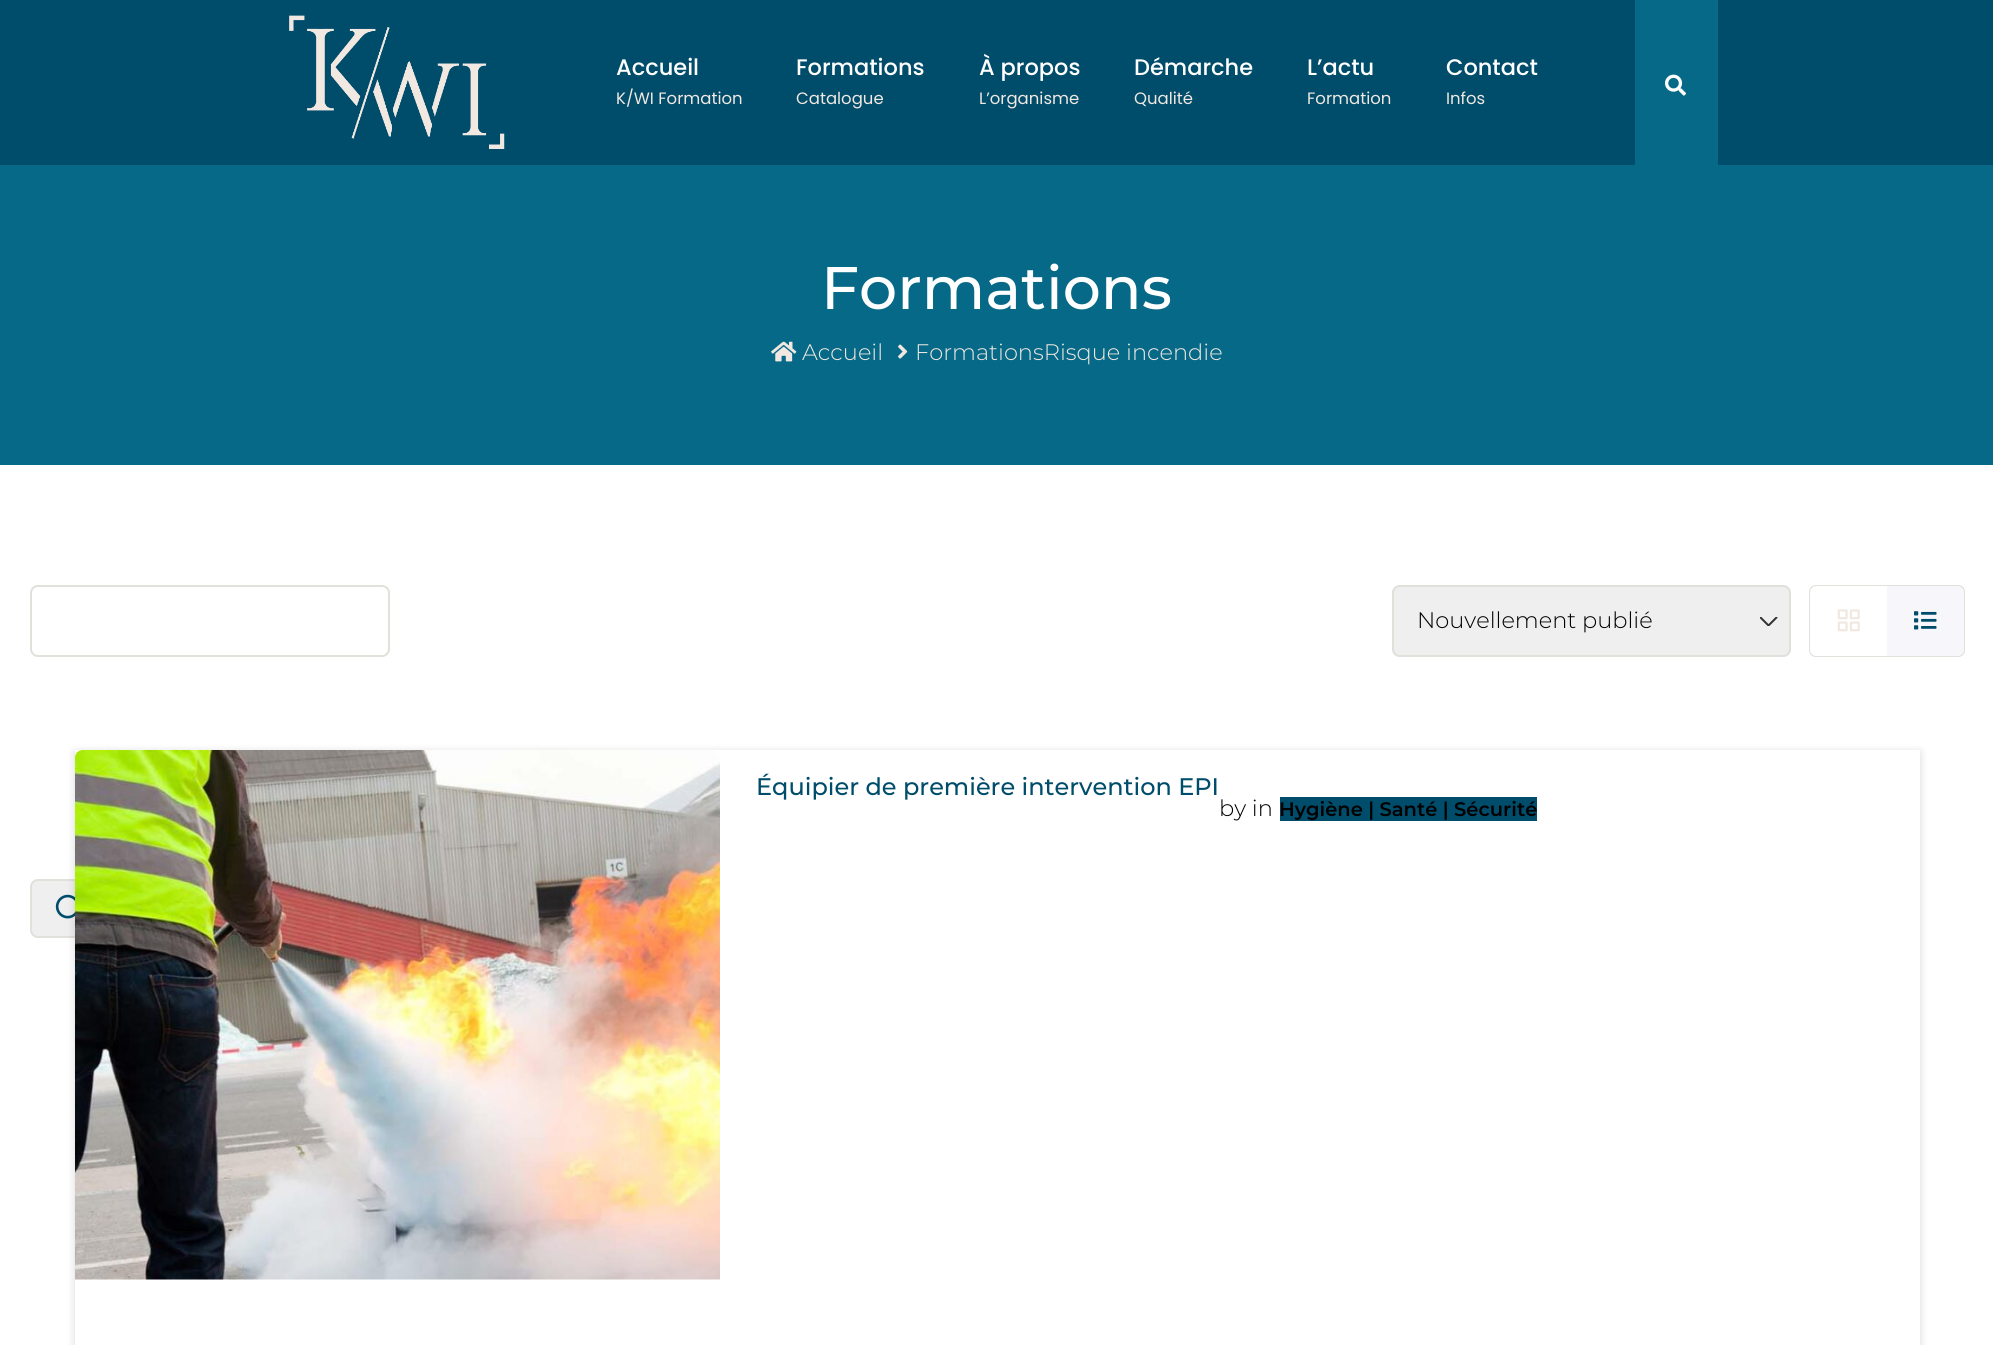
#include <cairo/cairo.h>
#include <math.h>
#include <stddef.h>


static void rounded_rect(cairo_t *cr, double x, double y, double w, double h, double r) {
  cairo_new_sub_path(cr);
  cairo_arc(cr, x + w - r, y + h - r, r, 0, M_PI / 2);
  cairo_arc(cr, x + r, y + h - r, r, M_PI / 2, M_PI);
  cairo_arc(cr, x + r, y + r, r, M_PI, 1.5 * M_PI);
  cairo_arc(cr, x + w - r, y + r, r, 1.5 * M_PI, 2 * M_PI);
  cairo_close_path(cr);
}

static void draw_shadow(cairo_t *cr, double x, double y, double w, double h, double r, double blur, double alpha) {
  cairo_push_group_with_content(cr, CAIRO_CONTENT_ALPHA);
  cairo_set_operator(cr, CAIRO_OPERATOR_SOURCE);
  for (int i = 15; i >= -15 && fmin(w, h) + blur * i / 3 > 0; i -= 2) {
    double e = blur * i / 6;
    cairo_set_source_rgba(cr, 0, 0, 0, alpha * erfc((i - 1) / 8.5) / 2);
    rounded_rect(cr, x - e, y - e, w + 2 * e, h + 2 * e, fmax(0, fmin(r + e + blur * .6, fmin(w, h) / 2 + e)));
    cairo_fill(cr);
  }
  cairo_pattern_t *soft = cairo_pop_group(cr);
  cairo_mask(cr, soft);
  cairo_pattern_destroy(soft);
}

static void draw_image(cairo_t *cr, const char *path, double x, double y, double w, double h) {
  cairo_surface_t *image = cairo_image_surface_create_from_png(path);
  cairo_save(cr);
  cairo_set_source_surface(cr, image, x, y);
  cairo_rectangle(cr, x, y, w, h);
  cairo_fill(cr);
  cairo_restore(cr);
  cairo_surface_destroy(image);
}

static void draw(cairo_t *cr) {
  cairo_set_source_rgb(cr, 1, 1, 1);
  cairo_paint(cr);
  cairo_set_source_rgb(cr, 0, 76 / 255.0, 107 / 255.0);
  cairo_rectangle(cr, 0, 0, 1993, 165);
  cairo_fill(cr);
  draw_image(cr, "images/1.png", 289, 15, 216, 134);
  cairo_set_source_rgb(cr, 6 / 255.0, 105 / 255.0, 135 / 255.0);
  cairo_rectangle(cr, 1635, 0, 83, 165);
  cairo_fill(cr);
  draw_image(cr, "images/2.png", 1665, 74, 21, 22);
  cairo_rectangle(cr, 0, 165, 1993, 300);
  cairo_fill(cr);
  draw_image(cr, "images/3.png", 771, 341, 26, 21);
  draw_image(cr, "images/4.png", 898, 344, 10, 15);
  rounded_rect(cr, 31, 586, 358, 70, 7);
  cairo_set_source_rgb(cr, 226 / 255.0, 224 / 255.0, 219 / 255.0);
  cairo_stroke(cr);
  cairo_set_source_rgb(cr, 239 / 255.0, 239 / 255.0, 239 / 255.0);
  rounded_rect(cr, 31, 880, 76, 57, 7);
  cairo_fill_preserve(cr);
  cairo_set_source_rgb(cr, 226 / 255.0, 224 / 255.0, 219 / 255.0);
  cairo_stroke(cr);
  draw_image(cr, "images/5.png", 55, 894, 20, 25);
  cairo_set_source_rgb(cr, 239 / 255.0, 239 / 255.0, 239 / 255.0);
  rounded_rect(cr, 1392, 585, 399, 72, 8);
  cairo_fill(cr);
  cairo_save(cr);
  cairo_rectangle(cr, 1760, 617, 18, 9);
  cairo_clip(cr);
  cairo_new_path(cr);
  cairo_move_to(cr, 1760.5, 617.5);
  cairo_line_to(cr, 1768.5, 625.5);
  cairo_line_to(cr, 1776.5, 617.5);
  cairo_set_source_rgb(cr, 51 / 255.0, 51 / 255.0, 51 / 255.0);
  cairo_set_line_cap(cr, CAIRO_LINE_CAP_ROUND);
  cairo_set_line_join(cr, CAIRO_LINE_JOIN_ROUND);
  cairo_stroke(cr);
  cairo_restore(cr);
  rounded_rect(cr, 1393, 586, 397, 70, 7);
  cairo_set_source_rgb(cr, 226 / 255.0, 224 / 255.0, 219 / 255.0);
  cairo_stroke(cr);
  cairo_set_fill_rule(cr, CAIRO_FILL_RULE_EVEN_ODD);
  cairo_new_path(cr);
  cairo_move_to(cr, 1816, 585);
  cairo_line_to(cr, 1887, 585);
  cairo_line_to(cr, 1887, 657);
  cairo_line_to(cr, 1816, 657);
  cairo_curve_to(cr, 1812, 657, 1809, 654, 1809, 650);
  cairo_line_to(cr, 1809, 592);
  cairo_curve_to(cr, 1809, 588, 1812, 585, 1816, 585);
  cairo_close_path(cr);
  cairo_move_to(cr, 1816, 586);
  cairo_line_to(cr, 1887, 586);
  cairo_line_to(cr, 1887, 656);
  cairo_line_to(cr, 1816, 656);
  cairo_curve_to(cr, 1813, 656, 1810, 653, 1810, 650);
  cairo_line_to(cr, 1810, 592);
  cairo_curve_to(cr, 1810, 589, 1813, 586, 1816, 586);
  cairo_close_path(cr);
  cairo_fill(cr);
  draw_image(cr, "images/6.png", 1837, 609, 23, 23);
  cairo_set_source_rgb(cr, 247 / 255.0, 247 / 255.0, 251 / 255.0);
  cairo_new_path(cr);
  cairo_move_to(cr, 1887, 585);
  cairo_line_to(cr, 1957, 585);
  cairo_curve_to(cr, 1961.5, 585, 1965, 588.5, 1965, 593);
  cairo_line_to(cr, 1965, 649);
  cairo_curve_to(cr, 1965, 653.5, 1961.5, 657, 1957, 657);
  cairo_line_to(cr, 1887, 657);
  cairo_close_path(cr);
  cairo_fill(cr);
  cairo_set_source_rgb(cr, 226 / 255.0, 224 / 255.0, 219 / 255.0);
  cairo_new_path(cr);
  cairo_move_to(cr, 1887, 585);
  cairo_line_to(cr, 1958, 585);
  cairo_curve_to(cr, 1962, 585, 1965, 588, 1965, 592);
  cairo_line_to(cr, 1965, 650);
  cairo_curve_to(cr, 1965, 654, 1962, 657, 1958, 657);
  cairo_line_to(cr, 1887, 657);
  cairo_close_path(cr);
  cairo_move_to(cr, 1887, 586);
  cairo_line_to(cr, 1958, 586);
  cairo_curve_to(cr, 1961, 586, 1964, 589, 1964, 592);
  cairo_line_to(cr, 1964, 650);
  cairo_curve_to(cr, 1964, 653, 1961, 656, 1958, 656);
  cairo_line_to(cr, 1887, 656);
  cairo_close_path(cr);
  cairo_fill(cr);
  draw_image(cr, "images/7.png", 1914, 611, 23, 19);
  cairo_save(cr);
  cairo_new_path(cr);
  cairo_move_to(cr, 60, 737);
  cairo_line_to(cr, 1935, 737);
  cairo_line_to(cr, 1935, 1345);
  cairo_line_to(cr, 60, 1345);
  cairo_close_path(cr);
  cairo_move_to(cr, 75, 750);
  cairo_line_to(cr, 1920, 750);
  cairo_line_to(cr, 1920, 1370);
  cairo_line_to(cr, 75, 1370);
  cairo_close_path(cr);
  cairo_clip(cr);
  cairo_set_source_rgb(cr, 0, 0, 0);
  draw_shadow(cr, 75, 752, 1845, 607, 0, 4.5, 0.15);
  cairo_restore(cr);
  draw_image(cr, "images/8.png", 75, 750, 645, 530);
  cairo_set_source_rgb(cr, 0, 76 / 255.0, 107 / 255.0);
  cairo_rectangle(cr, 1280, 797, 257, 24);
  cairo_fill(cr);
  cairo_select_font_face(cr, "Poppins Medium", CAIRO_FONT_SLANT_NORMAL, CAIRO_FONT_WEIGHT_NORMAL);
  cairo_set_font_size(cr, 22.5);
  cairo_set_source_rgb(cr, 1, 1, 1);
  cairo_move_to(cr, 616, 75);
  cairo_show_text(cr, "Accueil");
  cairo_select_font_face(cr, "Poppins", CAIRO_FONT_SLANT_NORMAL, CAIRO_FONT_WEIGHT_NORMAL);
  cairo_set_font_size(cr, 16.5);
  cairo_set_source_rgb(cr, 240 / 255.0, 232 / 255.0, 225 / 255.0);
  cairo_move_to(cr, 616, 104);
  cairo_show_text(cr, "K/WI Formation");
  cairo_select_font_face(cr, "Poppins Medium", CAIRO_FONT_SLANT_NORMAL, CAIRO_FONT_WEIGHT_NORMAL);
  cairo_set_font_size(cr, 22.5);
  cairo_set_source_rgb(cr, 1, 1, 1);
  cairo_move_to(cr, 796, 75);
  cairo_show_text(cr, "Formations");
  cairo_select_font_face(cr, "Poppins", CAIRO_FONT_SLANT_NORMAL, CAIRO_FONT_WEIGHT_NORMAL);
  cairo_set_font_size(cr, 16.5);
  cairo_set_source_rgb(cr, 240 / 255.0, 232 / 255.0, 225 / 255.0);
  cairo_move_to(cr, 796, 104);
  cairo_show_text(cr, "Catalogue");
  cairo_select_font_face(cr, "Poppins Medium", CAIRO_FONT_SLANT_NORMAL, CAIRO_FONT_WEIGHT_NORMAL);
  cairo_set_font_size(cr, 22.5);
  cairo_set_source_rgb(cr, 1, 1, 1);
  cairo_move_to(cr, 979, 75);
  cairo_show_text(cr, "À propos");
  cairo_select_font_face(cr, "Poppins", CAIRO_FONT_SLANT_NORMAL, CAIRO_FONT_WEIGHT_NORMAL);
  cairo_set_font_size(cr, 16.5);
  cairo_set_source_rgb(cr, 240 / 255.0, 232 / 255.0, 225 / 255.0);
  cairo_move_to(cr, 979, 104);
  cairo_show_text(cr, "L’organisme");
  cairo_select_font_face(cr, "Poppins Medium", CAIRO_FONT_SLANT_NORMAL, CAIRO_FONT_WEIGHT_NORMAL);
  cairo_set_font_size(cr, 22.5);
  cairo_set_source_rgb(cr, 1, 1, 1);
  cairo_move_to(cr, 1134, 75);
  cairo_show_text(cr, "Démarche");
  cairo_select_font_face(cr, "Poppins", CAIRO_FONT_SLANT_NORMAL, CAIRO_FONT_WEIGHT_NORMAL);
  cairo_set_font_size(cr, 16.5);
  cairo_set_source_rgb(cr, 240 / 255.0, 232 / 255.0, 225 / 255.0);
  cairo_move_to(cr, 1134, 104);
  cairo_show_text(cr, "Qualité");
  cairo_select_font_face(cr, "Poppins Medium", CAIRO_FONT_SLANT_NORMAL, CAIRO_FONT_WEIGHT_NORMAL);
  cairo_set_font_size(cr, 22.5);
  cairo_set_source_rgb(cr, 1, 1, 1);
  cairo_move_to(cr, 1307, 75);
  cairo_show_text(cr, "L’actu");
  cairo_select_font_face(cr, "Poppins", CAIRO_FONT_SLANT_NORMAL, CAIRO_FONT_WEIGHT_NORMAL);
  cairo_set_font_size(cr, 16.5);
  cairo_set_source_rgb(cr, 240 / 255.0, 232 / 255.0, 225 / 255.0);
  cairo_move_to(cr, 1307, 104);
  cairo_show_text(cr, "Formation");
  cairo_select_font_face(cr, "Poppins Medium", CAIRO_FONT_SLANT_NORMAL, CAIRO_FONT_WEIGHT_NORMAL);
  cairo_set_font_size(cr, 22.5);
  cairo_set_source_rgb(cr, 1, 1, 1);
  cairo_move_to(cr, 1446, 75);
  cairo_show_text(cr, "Contact");
  cairo_select_font_face(cr, "Poppins", CAIRO_FONT_SLANT_NORMAL, CAIRO_FONT_WEIGHT_NORMAL);
  cairo_set_font_size(cr, 16.5);
  cairo_set_source_rgb(cr, 240 / 255.0, 232 / 255.0, 225 / 255.0);
  cairo_move_to(cr, 1446, 104);
  cairo_show_text(cr, "Infos");
  cairo_select_font_face(cr, "Montserrat Medium", CAIRO_FONT_SLANT_NORMAL, CAIRO_FONT_WEIGHT_NORMAL);
  cairo_set_font_size(cr, 60);
  cairo_set_source_rgb(cr, 1, 1, 1);
  cairo_move_to(cr, 821, 309);
  cairo_show_text(cr, "Formations");
  cairo_select_font_face(cr, "Montserrat Light", CAIRO_FONT_SLANT_NORMAL, CAIRO_FONT_WEIGHT_NORMAL);
  cairo_set_font_size(cr, 22.5);
  cairo_set_source_rgb(cr, 240 / 255.0, 232 / 255.0, 225 / 255.0);
  cairo_move_to(cr, 802, 360);
  cairo_show_text(cr, "Accueil");
  cairo_move_to(cr, 915, 360);
  cairo_show_text(cr, "FormationsRisque incendie");
  cairo_set_source_rgb(cr, 0, 0, 0);
  cairo_move_to(cr, 1417, 628);
  cairo_show_text(cr, "Nouvellement publié");
  cairo_select_font_face(cr, "Montserrat Medium", CAIRO_FONT_SLANT_NORMAL, CAIRO_FONT_WEIGHT_NORMAL);
  cairo_set_font_size(cr, 24);
  cairo_set_source_rgb(cr, 0, 76 / 255.0, 107 / 255.0);
  cairo_move_to(cr, 756, 795);
  cairo_show_text(cr, "Équipier de première intervention EPI");
  cairo_select_font_face(cr, "Montserrat Light", CAIRO_FONT_SLANT_NORMAL, CAIRO_FONT_WEIGHT_NORMAL);
  cairo_set_font_size(cr, 22.5);
  cairo_set_source_rgb(cr, 0, 0, 0);
  cairo_move_to(cr, 1219, 816);
  cairo_show_text(cr, "by in");
  cairo_select_font_face(cr, "Montserrat SemiBold", CAIRO_FONT_SLANT_NORMAL, CAIRO_FONT_WEIGHT_NORMAL);
  cairo_set_font_size(cr, 19.5);
  cairo_move_to(cr, 1279, 816);
  cairo_show_text(cr, "Hygiène | Santé | Sécurité");
}

int main(void) {
  cairo_surface_t *surface = cairo_image_surface_create(CAIRO_FORMAT_RGB24, 1993, 1345);
  cairo_t *cr = cairo_create(surface);
  cairo_font_options_t *options = cairo_font_options_create();
  cairo_font_options_set_hint_metrics(options, CAIRO_HINT_METRICS_OFF);
  cairo_font_options_set_hint_style(options, CAIRO_HINT_STYLE_NONE);
  cairo_set_font_options(cr, options);
  cairo_set_miter_limit(cr, 4);
  draw(cr);
  cairo_surface_write_to_png(surface, "out.png");
  cairo_font_options_destroy(options);
  cairo_destroy(cr);
  cairo_surface_destroy(surface);
  return 0;
}
